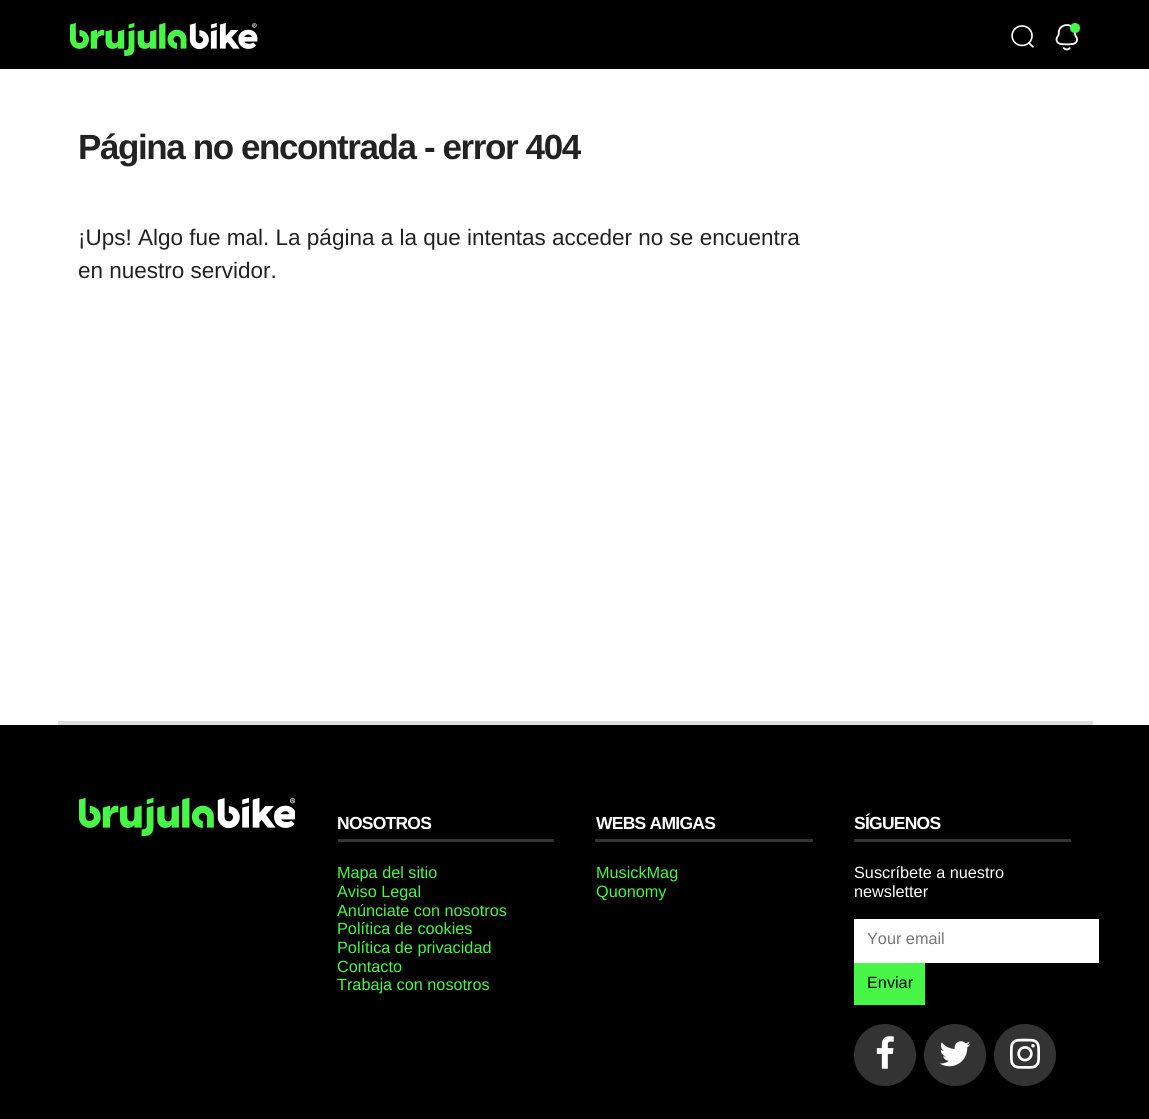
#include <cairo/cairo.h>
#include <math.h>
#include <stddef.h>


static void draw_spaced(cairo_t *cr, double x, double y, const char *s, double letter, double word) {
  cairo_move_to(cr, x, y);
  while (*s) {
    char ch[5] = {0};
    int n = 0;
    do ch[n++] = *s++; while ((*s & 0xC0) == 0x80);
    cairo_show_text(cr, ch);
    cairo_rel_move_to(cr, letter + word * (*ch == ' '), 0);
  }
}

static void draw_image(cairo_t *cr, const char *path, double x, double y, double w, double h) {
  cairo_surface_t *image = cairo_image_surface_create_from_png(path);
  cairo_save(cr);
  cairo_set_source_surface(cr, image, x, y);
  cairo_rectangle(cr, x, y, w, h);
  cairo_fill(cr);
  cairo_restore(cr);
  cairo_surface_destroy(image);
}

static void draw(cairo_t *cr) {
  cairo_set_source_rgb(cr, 1, 1, 1);
  cairo_paint(cr);
  cairo_set_source_rgb(cr, 0, 0, 0);
  cairo_rectangle(cr, 0, 0, 1149, 69);
  cairo_fill(cr);
  draw_image(cr, "images/1.png", 70, 23, 188, 33);
  draw_image(cr, "images/2.png", 1011, 25, 23, 23);
  draw_image(cr, "images/3.png", 1055, 24, 23, 27);
  cairo_set_source_rgb(cr, 72 / 255.0, 246 / 255.0, 72 / 255.0);
  cairo_arc(cr, 1075, 28, 5, 0, 2 * M_PI);
  cairo_fill(cr);
  cairo_set_source_rgb(cr, 221 / 255.0, 221 / 255.0, 221 / 255.0);
  cairo_rectangle(cr, 58, 721, 1035, 4);
  cairo_fill(cr);
  cairo_set_source_rgb(cr, 0, 0, 0);
  cairo_rectangle(cr, 0, 725, 1149, 394);
  cairo_fill(cr);
  draw_image(cr, "images/4.png", 79, 798, 216, 38);
  cairo_set_source_rgb(cr, 51 / 255.0, 51 / 255.0, 51 / 255.0);
  cairo_rectangle(cr, 338, 839, 216, 3);
  cairo_fill(cr);
  cairo_rectangle(cr, 595, 839, 218, 3);
  cairo_fill(cr);
  cairo_rectangle(cr, 854, 839, 217, 3);
  cairo_fill(cr);
  cairo_set_source_rgb(cr, 1, 1, 1);
  cairo_rectangle(cr, 854, 919, 245, 44);
  cairo_fill(cr);
  cairo_set_source_rgb(cr, 72 / 255.0, 246 / 255.0, 72 / 255.0);
  cairo_rectangle(cr, 854, 963, 71, 42);
  cairo_fill(cr);
  cairo_set_source_rgb(cr, 51 / 255.0, 51 / 255.0, 51 / 255.0);
  cairo_arc(cr, 885, 1055, 31, 0, 2 * M_PI);
  cairo_fill(cr);
  draw_image(cr, "images/5.png", 876, 1036, 18, 33);
  cairo_arc(cr, 955, 1055, 31, 0, 2 * M_PI);
  cairo_fill(cr);
  draw_image(cr, "images/6.png", 939, 1041, 32, 26);
  cairo_arc(cr, 1025, 1055, 31, 0, 2 * M_PI);
  cairo_fill(cr);
  draw_image(cr, "images/7.png", 1010, 1038, 30, 31);
  cairo_select_font_face(cr, "Liberation Sans", CAIRO_FONT_SLANT_NORMAL, CAIRO_FONT_WEIGHT_BOLD);
  cairo_set_font_size(cr, 35);
  cairo_set_source_rgb(cr, 34 / 255.0, 34 / 255.0, 34 / 255.0);
  draw_spaced(cr, 78, 159, "Página no encontrada - error 404", -1.4, 0);
  cairo_select_font_face(cr, "Liberation Sans", CAIRO_FONT_SLANT_NORMAL, CAIRO_FONT_WEIGHT_NORMAL);
  cairo_set_font_size(cr, 22.5);
  cairo_move_to(cr, 78, 245);
  cairo_show_text(cr, "¡Ups! Algo fue mal. La página a la que intentas acceder no se encuentra");
  cairo_move_to(cr, 78, 278);
  cairo_show_text(cr, "en nuestro servidor.");
  cairo_select_font_face(cr, "Liberation Sans", CAIRO_FONT_SLANT_NORMAL, CAIRO_FONT_WEIGHT_BOLD);
  cairo_set_font_size(cr, 17.5);
  cairo_set_source_rgb(cr, 1, 1, 1);
  draw_spaced(cr, 337, 829, "NOSOTROS", -0.75, 0);
  cairo_select_font_face(cr, "Liberation Sans", CAIRO_FONT_SLANT_NORMAL, CAIRO_FONT_WEIGHT_NORMAL);
  cairo_set_font_size(cr, 16.25);
  cairo_set_source_rgb(cr, 72 / 255.0, 246 / 255.0, 72 / 255.0);
  cairo_move_to(cr, 337, 878);
  cairo_show_text(cr, "Mapa del sitio");
  cairo_move_to(cr, 337, 897);
  cairo_show_text(cr, "Aviso Legal");
  cairo_move_to(cr, 337, 916);
  cairo_show_text(cr, "Anúnciate con nosotros");
  cairo_move_to(cr, 337, 934);
  cairo_show_text(cr, "Política de cookies");
  cairo_move_to(cr, 337, 953);
  cairo_show_text(cr, "Política de privacidad");
  cairo_move_to(cr, 337, 972);
  cairo_show_text(cr, "Contacto");
  cairo_move_to(cr, 337, 990);
  cairo_show_text(cr, "Trabaja con nosotros");
  cairo_select_font_face(cr, "Liberation Sans", CAIRO_FONT_SLANT_NORMAL, CAIRO_FONT_WEIGHT_BOLD);
  cairo_set_font_size(cr, 17.5);
  cairo_set_source_rgb(cr, 1, 1, 1);
  draw_spaced(cr, 596, 829, "WEBS AMIGAS", -0.75, 0);
  cairo_select_font_face(cr, "Liberation Sans", CAIRO_FONT_SLANT_NORMAL, CAIRO_FONT_WEIGHT_NORMAL);
  cairo_set_font_size(cr, 16.25);
  cairo_set_source_rgb(cr, 72 / 255.0, 246 / 255.0, 72 / 255.0);
  cairo_move_to(cr, 596, 878);
  cairo_show_text(cr, "MusickMag");
  cairo_move_to(cr, 596, 897);
  cairo_show_text(cr, "Quonomy");
  cairo_select_font_face(cr, "Liberation Sans", CAIRO_FONT_SLANT_NORMAL, CAIRO_FONT_WEIGHT_BOLD);
  cairo_set_font_size(cr, 17.5);
  cairo_set_source_rgb(cr, 1, 1, 1);
  draw_spaced(cr, 854, 829, "SÍGUENOS", -0.75, 0);
  cairo_select_font_face(cr, "Liberation Sans", CAIRO_FONT_SLANT_NORMAL, CAIRO_FONT_WEIGHT_NORMAL);
  cairo_set_font_size(cr, 16.25);
  cairo_move_to(cr, 854, 878);
  cairo_show_text(cr, "Suscríbete a nuestro");
  cairo_move_to(cr, 854, 897);
  cairo_show_text(cr, "newsletter");
  cairo_set_source_rgb(cr, 117 / 255.0, 117 / 255.0, 117 / 255.0);
  cairo_move_to(cr, 867, 944);
  cairo_show_text(cr, "Your email");
  cairo_set_source_rgb(cr, 0, 0, 0);
  cairo_move_to(cr, 867, 988);
  cairo_show_text(cr, "Enviar");
}

int main(void) {
  cairo_surface_t *surface = cairo_image_surface_create(CAIRO_FORMAT_RGB24, 1149, 1119);
  cairo_t *cr = cairo_create(surface);
  cairo_font_options_t *options = cairo_font_options_create();
  cairo_font_options_set_hint_metrics(options, CAIRO_HINT_METRICS_OFF);
  cairo_font_options_set_hint_style(options, CAIRO_HINT_STYLE_NONE);
  cairo_set_font_options(cr, options);
  cairo_set_miter_limit(cr, 4);
  draw(cr);
  cairo_surface_write_to_png(surface, "out.png");
  cairo_font_options_destroy(options);
  cairo_destroy(cr);
  cairo_surface_destroy(surface);
  return 0;
}
